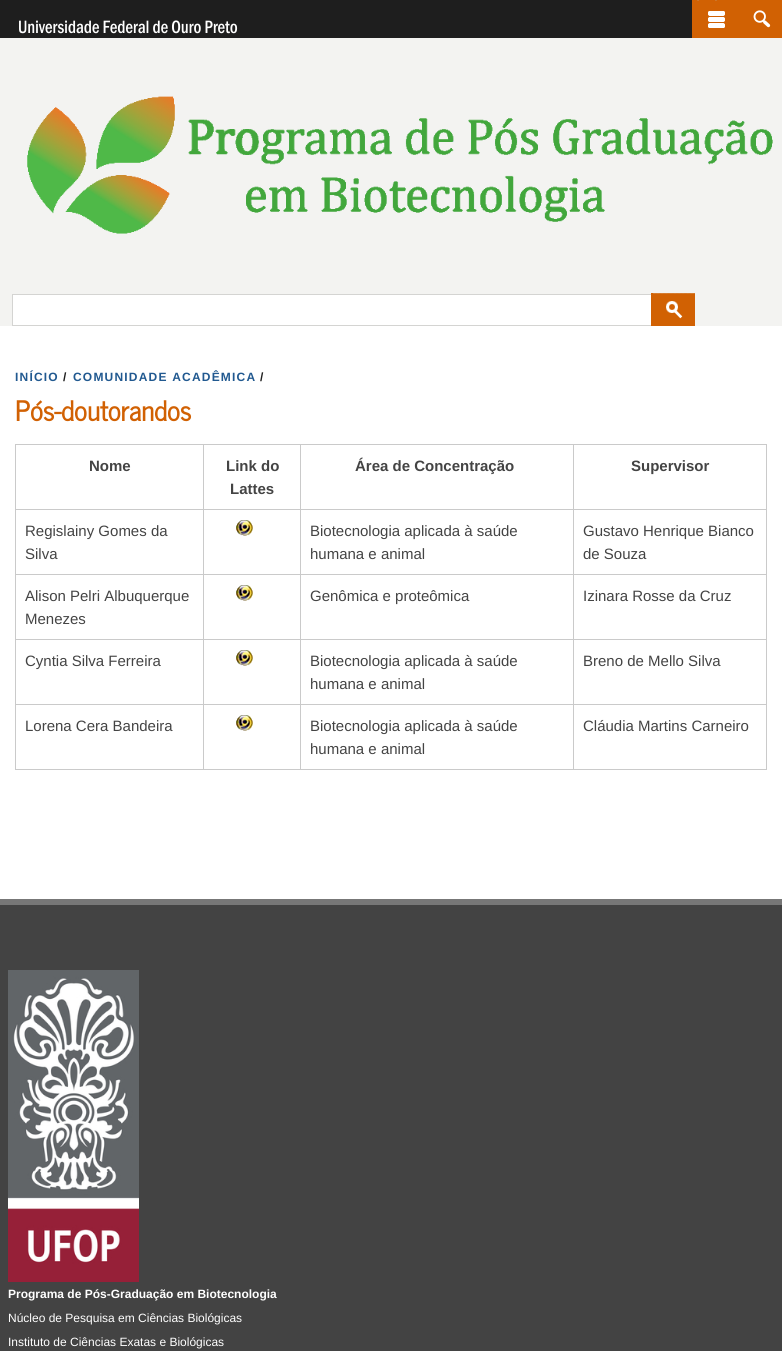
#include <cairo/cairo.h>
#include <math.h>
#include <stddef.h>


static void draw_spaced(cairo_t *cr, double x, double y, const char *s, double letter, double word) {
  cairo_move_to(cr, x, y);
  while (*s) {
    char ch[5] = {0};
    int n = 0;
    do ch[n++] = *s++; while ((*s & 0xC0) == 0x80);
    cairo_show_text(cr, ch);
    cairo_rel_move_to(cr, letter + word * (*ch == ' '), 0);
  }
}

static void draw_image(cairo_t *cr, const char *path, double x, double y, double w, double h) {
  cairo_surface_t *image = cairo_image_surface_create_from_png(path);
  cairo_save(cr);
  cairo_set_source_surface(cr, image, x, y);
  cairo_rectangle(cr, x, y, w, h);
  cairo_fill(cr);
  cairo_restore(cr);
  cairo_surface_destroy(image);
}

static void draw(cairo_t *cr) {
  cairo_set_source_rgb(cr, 1, 1, 1);
  cairo_paint(cr);
  cairo_set_source_rgb(cr, 30 / 255.0, 30 / 255.0, 30 / 255.0);
  cairo_rectangle(cr, 0, 0, 692, 38);
  cairo_fill(cr);
  draw_image(cr, "images/1.png", 19, 20, 219, 14);
  cairo_set_source_rgb(cr, 209 / 255.0, 97 / 255.0, 3 / 255.0);
  cairo_rectangle(cr, 692, 0, 90, 38);
  cairo_fill(cr);
  draw_image(cr, "images/2.png", 697, 0, 28, 28);
  draw_image(cr, "images/3.png", 753, 10, 18, 18);
  cairo_set_source_rgb(cr, 243 / 255.0, 243 / 255.0, 241 / 255.0);
  cairo_rectangle(cr, 0, 38, 782, 288);
  cairo_fill(cr);
  draw_image(cr, "images/4.png", 27, 96, 746, 138);
  cairo_set_source_rgb(cr, 1, 1, 1);
  cairo_rectangle(cr, 13, 295, 638, 30);
  cairo_fill(cr);
  cairo_rectangle(cr, 12.5, 294.5, 679, 31);
  cairo_set_source_rgb(cr, 212 / 255.0, 212 / 255.0, 210 / 255.0);
  cairo_set_line_width(cr, 1);
  cairo_stroke(cr);
  cairo_set_source_rgb(cr, 209 / 255.0, 97 / 255.0, 3 / 255.0);
  cairo_rectangle(cr, 651, 293, 44, 33);
  cairo_fill(cr);
  draw_image(cr, "images/5.png", 653, 293, 42, 26);
  cairo_set_source_rgb(cr, 202 / 255.0, 202 / 255.0, 202 / 255.0);
  cairo_rectangle(cr, 15, 444, 752, 1);
  cairo_fill(cr);
  cairo_rectangle(cr, 766, 444, 1, 326);
  cairo_fill(cr);
  cairo_rectangle(cr, 15, 769, 752, 1);
  cairo_fill(cr);
  cairo_rectangle(cr, 15, 444, 1, 326);
  cairo_fill(cr);
  cairo_rectangle(cr, 573, 509, 194, 1);
  cairo_fill(cr);
  cairo_rectangle(cr, 573, 574, 194, 1);
  cairo_fill(cr);
  cairo_rectangle(cr, 573, 639, 194, 1);
  cairo_fill(cr);
  cairo_rectangle(cr, 573, 704, 194, 1);
  cairo_fill(cr);
  cairo_rectangle(cr, 573, 704, 1, 66);
  cairo_fill(cr);
  cairo_rectangle(cr, 300, 704, 274, 1);
  cairo_fill(cr);
  cairo_rectangle(cr, 573, 639, 1, 66);
  cairo_fill(cr);
  cairo_rectangle(cr, 300, 639, 274, 1);
  cairo_fill(cr);
  cairo_rectangle(cr, 573, 574, 1, 66);
  cairo_fill(cr);
  cairo_rectangle(cr, 300, 574, 274, 1);
  cairo_fill(cr);
  cairo_rectangle(cr, 573, 509, 1, 66);
  cairo_fill(cr);
  cairo_rectangle(cr, 300, 509, 274, 1);
  cairo_fill(cr);
  cairo_rectangle(cr, 300, 704, 1, 66);
  cairo_fill(cr);
  cairo_rectangle(cr, 203, 704, 98, 1);
  cairo_fill(cr);
  cairo_rectangle(cr, 300, 639, 1, 66);
  cairo_fill(cr);
  cairo_rectangle(cr, 203, 639, 98, 1);
  cairo_fill(cr);
  cairo_rectangle(cr, 300, 574, 1, 66);
  cairo_fill(cr);
  cairo_rectangle(cr, 203, 574, 98, 1);
  cairo_fill(cr);
  cairo_rectangle(cr, 300, 509, 1, 66);
  cairo_fill(cr);
  cairo_rectangle(cr, 203, 509, 98, 1);
  cairo_fill(cr);
  cairo_rectangle(cr, 203, 704, 1, 66);
  cairo_fill(cr);
  cairo_rectangle(cr, 15, 704, 189, 1);
  cairo_fill(cr);
  cairo_rectangle(cr, 203, 639, 1, 66);
  cairo_fill(cr);
  cairo_rectangle(cr, 15, 639, 189, 1);
  cairo_fill(cr);
  cairo_rectangle(cr, 203, 574, 1, 66);
  cairo_fill(cr);
  cairo_rectangle(cr, 15, 574, 189, 1);
  cairo_fill(cr);
  cairo_rectangle(cr, 203, 509, 1, 66);
  cairo_fill(cr);
  cairo_rectangle(cr, 15, 509, 189, 1);
  cairo_fill(cr);
  cairo_rectangle(cr, 203, 444, 1, 66);
  cairo_fill(cr);
  cairo_rectangle(cr, 300, 444, 1, 66);
  cairo_fill(cr);
  cairo_rectangle(cr, 573, 444, 1, 66);
  cairo_fill(cr);
  draw_image(cr, "images/6.png", 236, 520, 17, 16);
  draw_image(cr, "images/6.png", 236, 585, 17, 16);
  draw_image(cr, "images/6.png", 236, 650, 17, 16);
  draw_image(cr, "images/6.png", 236, 715, 17, 16);
  cairo_set_source_rgb(cr, 67 / 255.0, 67 / 255.0, 67 / 255.0);
  cairo_rectangle(cr, 0, 905, 782, 446);
  cairo_fill(cr);
  cairo_set_source_rgb(cr, 119 / 255.0, 119 / 255.0, 119 / 255.0);
  cairo_rectangle(cr, 0, 899, 782, 6);
  cairo_fill(cr);
  draw_image(cr, "images/7.png", 8, 970, 131, 312);
  cairo_select_font_face(cr, "Liberation Sans", CAIRO_FONT_SLANT_NORMAL, CAIRO_FONT_WEIGHT_BOLD);
  cairo_set_font_size(cr, 12);
  cairo_set_source_rgb(cr, 33 / 255.0, 89 / 255.0, 144 / 255.0);
  draw_spaced(cr, 15, 381, "INÍCIO", 1.2, 0);
  cairo_set_source_rgb(cr, 30 / 255.0, 30 / 255.0, 30 / 255.0);
  draw_spaced(cr, 63, 381, "/", 1.2, 0);
  cairo_set_source_rgb(cr, 33 / 255.0, 89 / 255.0, 144 / 255.0);
  draw_spaced(cr, 73, 381, "COMUNIDADE ACADÊMICA", 1.2, 0);
  cairo_set_source_rgb(cr, 30 / 255.0, 30 / 255.0, 30 / 255.0);
  draw_spaced(cr, 260, 381, "/", 1.2, 0);
  cairo_select_font_face(cr, "News Cycle", CAIRO_FONT_SLANT_NORMAL, CAIRO_FONT_WEIGHT_BOLD);
  cairo_set_font_size(cr, 27);
  cairo_set_source_rgb(cr, 209 / 255.0, 97 / 255.0, 3 / 255.0);
  cairo_move_to(cr, 15, 421);
  cairo_show_text(cr, "Pós-doutorandos");
  cairo_select_font_face(cr, "Liberation Sans", CAIRO_FONT_SLANT_NORMAL, CAIRO_FONT_WEIGHT_BOLD);
  cairo_set_font_size(cr, 15);
  cairo_set_source_rgb(cr, 68 / 255.0, 68 / 255.0, 68 / 255.0);
  cairo_move_to(cr, 89, 471);
  cairo_show_text(cr, "Nome");
  cairo_move_to(cr, 226, 471);
  cairo_show_text(cr, "Link do");
  cairo_move_to(cr, 230, 494);
  cairo_show_text(cr, "Lattes");
  cairo_move_to(cr, 355, 471);
  cairo_show_text(cr, "Área de Concentração");
  cairo_move_to(cr, 631, 471);
  cairo_show_text(cr, "Supervisor");
  cairo_select_font_face(cr, "Liberation Sans", CAIRO_FONT_SLANT_NORMAL, CAIRO_FONT_WEIGHT_NORMAL);
  cairo_move_to(cr, 25, 536);
  cairo_show_text(cr, "Regislainy Gomes da");
  cairo_move_to(cr, 25, 559);
  cairo_show_text(cr, "Silva");
  cairo_move_to(cr, 310, 536);
  cairo_show_text(cr, "Biotecnologia aplicada à saúde");
  cairo_move_to(cr, 310, 559);
  cairo_show_text(cr, "humana e animal");
  cairo_move_to(cr, 583, 536);
  cairo_show_text(cr, "Gustavo Henrique Bianco");
  cairo_move_to(cr, 583, 559);
  cairo_show_text(cr, "de Souza");
  cairo_move_to(cr, 25, 601);
  cairo_show_text(cr, "Alison Pelri Albuquerque");
  cairo_move_to(cr, 25, 624);
  cairo_show_text(cr, "Menezes");
  cairo_move_to(cr, 310, 601);
  cairo_show_text(cr, "Genômica e proteômica");
  cairo_move_to(cr, 583, 601);
  cairo_show_text(cr, "Izinara Rosse da Cruz");
  cairo_move_to(cr, 25, 666);
  cairo_show_text(cr, "Cyntia Silva Ferreira");
  cairo_move_to(cr, 310, 666);
  cairo_show_text(cr, "Biotecnologia aplicada à saúde");
  cairo_move_to(cr, 310, 689);
  cairo_show_text(cr, "humana e animal");
  cairo_move_to(cr, 583, 666);
  cairo_show_text(cr, "Breno de Mello Silva");
  cairo_move_to(cr, 25, 731);
  cairo_show_text(cr, "Lorena Cera Bandeira");
  cairo_move_to(cr, 310, 731);
  cairo_show_text(cr, "Biotecnologia aplicada à saúde");
  cairo_move_to(cr, 310, 754);
  cairo_show_text(cr, "humana e animal");
  cairo_move_to(cr, 583, 731);
  cairo_show_text(cr, "Cláudia Martins Carneiro");
  cairo_select_font_face(cr, "Liberation Sans", CAIRO_FONT_SLANT_NORMAL, CAIRO_FONT_WEIGHT_BOLD);
  cairo_set_font_size(cr, 12);
  cairo_set_source_rgb(cr, 1, 1, 1);
  cairo_move_to(cr, 8, 1298);
  cairo_show_text(cr, "Programa de Pós-Graduação em Biotecnologia");
  cairo_select_font_face(cr, "Liberation Sans", CAIRO_FONT_SLANT_NORMAL, CAIRO_FONT_WEIGHT_NORMAL);
  cairo_move_to(cr, 8, 1322);
  cairo_show_text(cr, "Núcleo de Pesquisa em Ciências Biológicas");
  cairo_move_to(cr, 8, 1346);
  cairo_show_text(cr, "Instituto de Ciências Exatas e Biológicas");
}

int main(void) {
  cairo_surface_t *surface = cairo_image_surface_create(CAIRO_FORMAT_RGB24, 782, 1351);
  cairo_t *cr = cairo_create(surface);
  cairo_font_options_t *options = cairo_font_options_create();
  cairo_font_options_set_hint_metrics(options, CAIRO_HINT_METRICS_OFF);
  cairo_font_options_set_hint_style(options, CAIRO_HINT_STYLE_NONE);
  cairo_set_font_options(cr, options);
  cairo_set_miter_limit(cr, 4);
  draw(cr);
  cairo_surface_write_to_png(surface, "out.png");
  cairo_font_options_destroy(options);
  cairo_destroy(cr);
  cairo_surface_destroy(surface);
  return 0;
}
